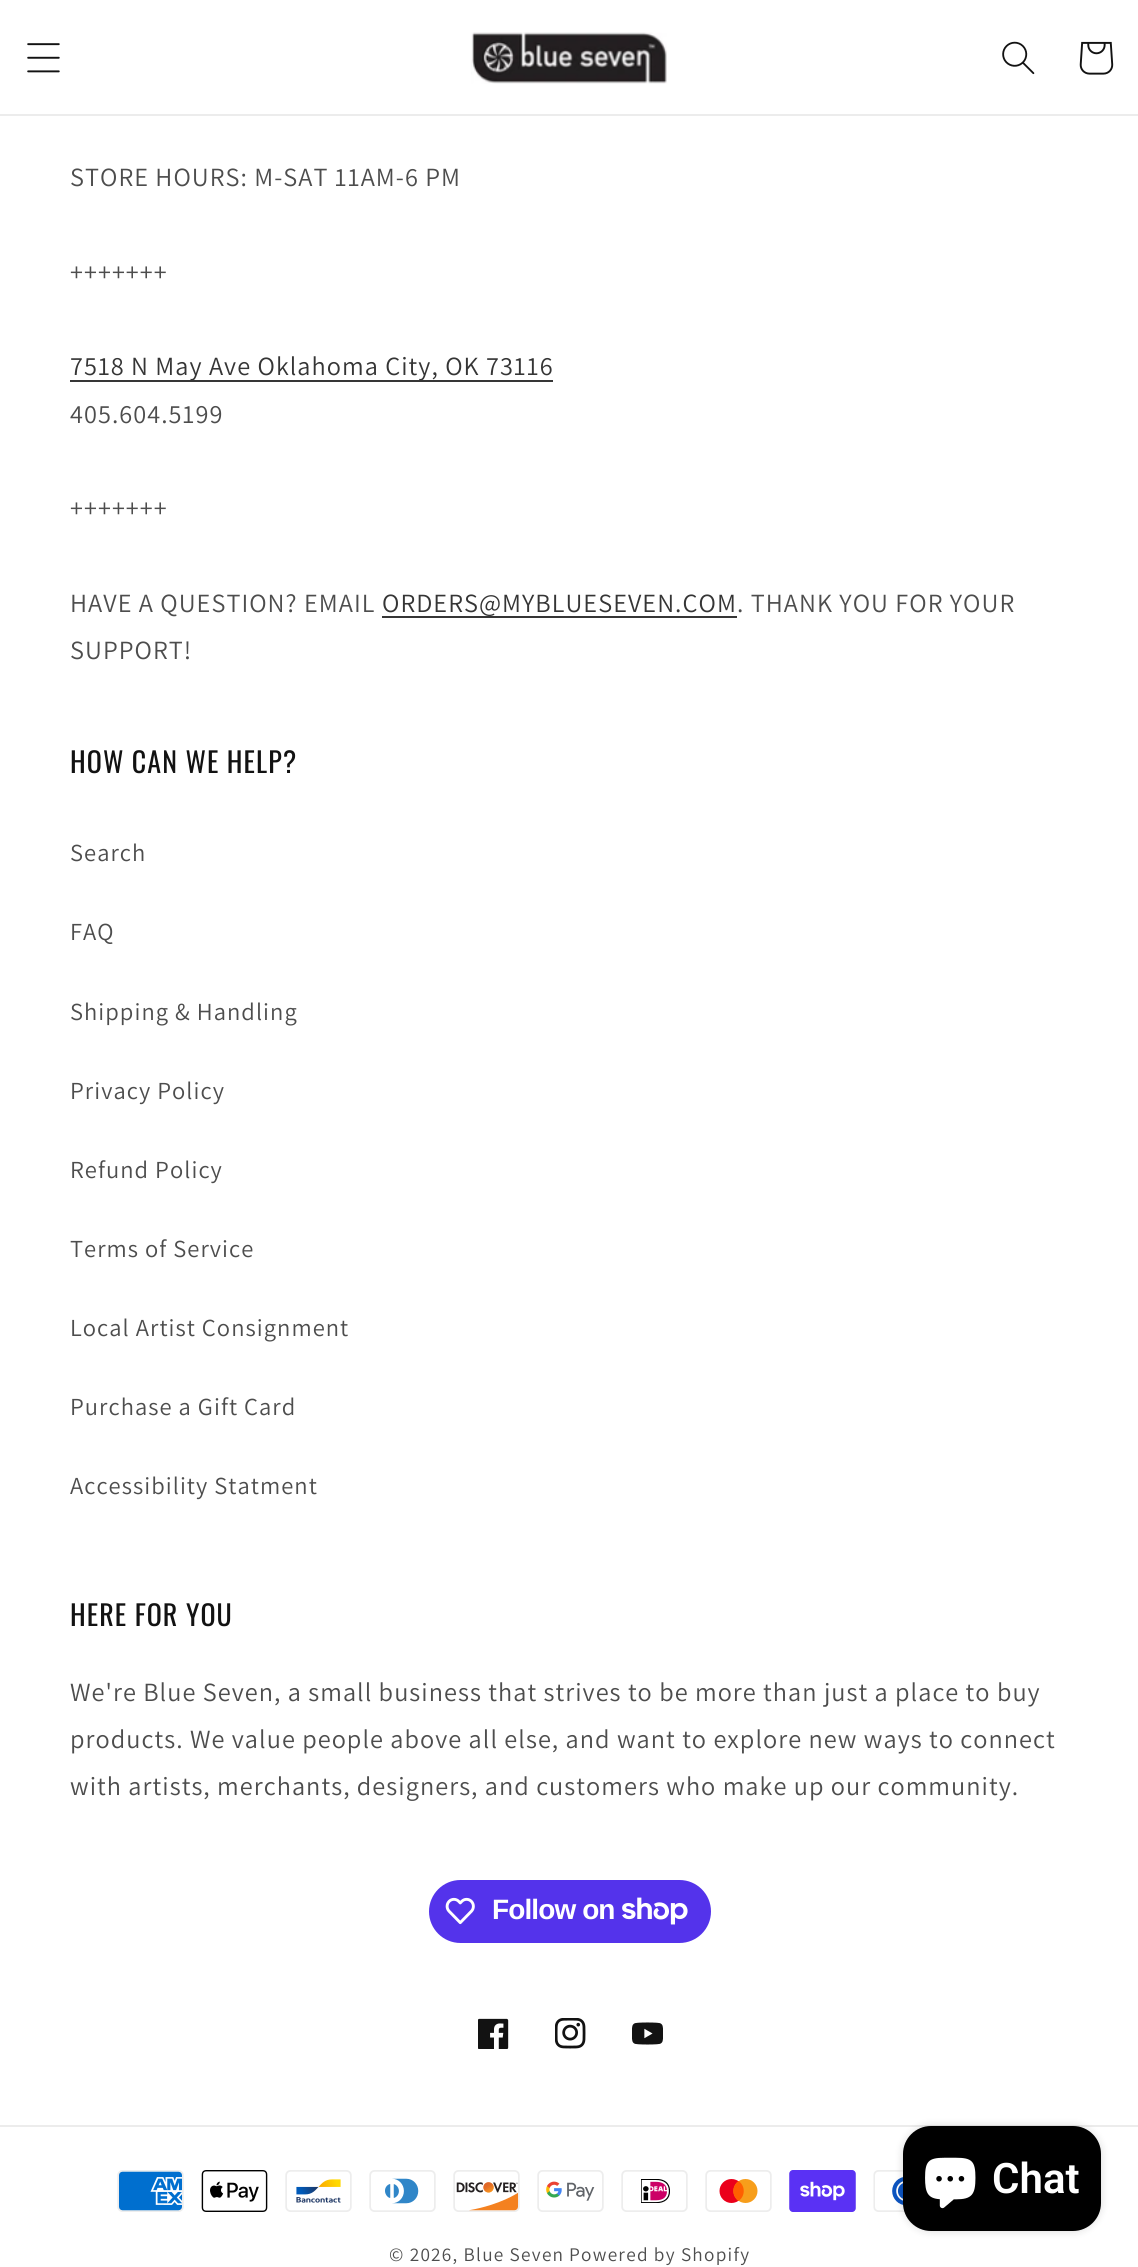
#include <cairo/cairo.h>
#include <math.h>
#include <stddef.h>


static void draw_spaced(cairo_t *cr, double x, double y, const char *s, double letter, double word) {
  cairo_move_to(cr, x, y);
  while (*s) {
    char ch[5] = {0};
    int n = 0;
    do ch[n++] = *s++; while ((*s & 0xC0) == 0x80);
    cairo_show_text(cr, ch);
    cairo_rel_move_to(cr, letter + word * (*ch == ' '), 0);
  }
}

static void rounded_rect(cairo_t *cr, double x, double y, double w, double h, double r) {
  cairo_new_sub_path(cr);
  cairo_arc(cr, x + w - r, y + h - r, r, 0, M_PI / 2);
  cairo_arc(cr, x + r, y + h - r, r, M_PI / 2, M_PI);
  cairo_arc(cr, x + r, y + r, r, M_PI, 1.5 * M_PI);
  cairo_arc(cr, x + w - r, y + r, r, 1.5 * M_PI, 2 * M_PI);
  cairo_close_path(cr);
}

static void draw_shadow(cairo_t *cr, double x, double y, double w, double h, double r, double blur, double alpha) {
  cairo_push_group_with_content(cr, CAIRO_CONTENT_ALPHA);
  cairo_set_operator(cr, CAIRO_OPERATOR_SOURCE);
  for (int i = 15; i >= -15 && fmin(w, h) + blur * i / 3 > 0; i -= 2) {
    double e = blur * i / 6;
    cairo_set_source_rgba(cr, 0, 0, 0, alpha * erfc((i - 1) / 8.5) / 2);
    rounded_rect(cr, x - e, y - e, w + 2 * e, h + 2 * e, fmax(0, fmin(r + e + blur * .6, fmin(w, h) / 2 + e)));
    cairo_fill(cr);
  }
  cairo_pattern_t *soft = cairo_pop_group(cr);
  cairo_mask(cr, soft);
  cairo_pattern_destroy(soft);
}

static void draw_image(cairo_t *cr, const char *path, double x, double y, double w, double h) {
  cairo_surface_t *image = cairo_image_surface_create_from_png(path);
  cairo_save(cr);
  cairo_set_source_surface(cr, image, x, y);
  cairo_rectangle(cr, x, y, w, h);
  cairo_fill(cr);
  cairo_restore(cr);
  cairo_surface_destroy(image);
}

static void draw(cairo_t *cr) {
  cairo_set_source_rgb(cr, 1, 1, 1);
  cairo_paint(cr);
  cairo_set_source_rgb(cr, 236 / 255.0, 236 / 255.0, 236 / 255.0);
  cairo_rectangle(cr, 0, 114, 1138, 2);
  cairo_fill(cr);
  draw_image(cr, "images/1.png", 27, 43, 33, 30);
  draw_image(cr, "images/2.png", 471, 32, 196, 52);
  draw_image(cr, "images/3.png", 1002, 41, 33, 34);
  draw_image(cr, "images/4.png", 1079, 41, 35, 34);
  cairo_set_source_rgb(cr, 54 / 255.0, 54 / 255.0, 54 / 255.0);
  cairo_rectangle(cr, 70, 380, 483, 2);
  cairo_fill(cr);
  cairo_rectangle(cr, 382, 616, 355, 2);
  cairo_fill(cr);
  cairo_set_source_rgb(cr, 84 / 255.0, 51 / 255.0, 235 / 255.0);
  rounded_rect(cr, 429, 1880, 282, 63, 31.5);
  cairo_fill(cr);
  draw_image(cr, "images/5.png", 445, 1897, 30, 28);
  draw_image(cr, "images/6.png", 622, 1897, 66, 28);
  draw_image(cr, "images/7.png", 478, 2018, 31, 31);
  draw_image(cr, "images/8.png", 555, 2018, 31, 31);
  draw_image(cr, "images/9.png", 632, 2022, 31, 23);
  cairo_set_source_rgb(cr, 236 / 255.0, 236 / 255.0, 236 / 255.0);
  cairo_rectangle(cr, 0, 2125, 1138, 2);
  cairo_fill(cr);
  draw_image(cr, "images/10.png", 117, 2170, 67, 42);
  draw_image(cr, "images/11.png", 201, 2170, 67, 42);
  draw_image(cr, "images/12.png", 285, 2170, 67, 42);
  draw_image(cr, "images/13.png", 369, 2170, 67, 42);
  draw_image(cr, "images/14.png", 453, 2170, 67, 42);
  draw_image(cr, "images/15.png", 537, 2170, 67, 42);
  draw_image(cr, "images/16.png", 621, 2170, 67, 42);
  draw_image(cr, "images/17.png", 705, 2170, 67, 42);
  draw_image(cr, "images/18.png", 789, 2170, 67, 42);
  draw_image(cr, "images/19.png", 873, 2170, 32, 42);
  cairo_set_source_rgb(cr, 0, 0, 0);
  draw_shadow(cr, 903, 2126, 198, 105, 28, 4.5, 0.15);
  cairo_set_source_rgb(cr, 0, 0, 0);
  rounded_rect(cr, 903, 2126, 198, 105, 28);
  cairo_fill(cr);
  draw_image(cr, "images/20.png", 925, 2157, 51, 52);
  cairo_select_font_face(cr, "Assistant", CAIRO_FONT_SLANT_NORMAL, CAIRO_FONT_WEIGHT_NORMAL);
  cairo_set_font_size(cr, 26.25);
  cairo_set_source_rgb(cr, 77 / 255.0, 77 / 255.0, 77 / 255.0);
  draw_spaced(cr, 70, 186, "STORE HOURS: M-SAT 11AM-6 PM", 1.05, 0);
  draw_spaced(cr, 70, 281, "+++++++", 1.05, 0);
  cairo_set_source_rgb(cr, 53 / 255.0, 53 / 255.0, 53 / 255.0);
  draw_spaced(cr, 70, 375, "7518 N May Ave Oklahoma City, OK 73116", 1.05, 0);
  cairo_set_source_rgb(cr, 77 / 255.0, 77 / 255.0, 77 / 255.0);
  draw_spaced(cr, 70, 423, "405.604.5199", 1.05, 0);
  draw_spaced(cr, 70, 517, "+++++++", 1.05, 0);
  draw_spaced(cr, 70, 612, "HAVE A QUESTION? EMAIL", 1.05, 0);
  cairo_set_source_rgb(cr, 53 / 255.0, 53 / 255.0, 53 / 255.0);
  draw_spaced(cr, 382, 612, "ORDERS@MYBLUESEVEN.COM", 1.05, 0);
  cairo_set_source_rgb(cr, 77 / 255.0, 77 / 255.0, 77 / 255.0);
  draw_spaced(cr, 737, 612, ". THANK YOU FOR YOUR", 1.05, 0);
  draw_spaced(cr, 70, 659, "SUPPORT!", 1.05, 0);
  cairo_select_font_face(cr, "Oswald", CAIRO_FONT_SLANT_NORMAL, CAIRO_FONT_WEIGHT_NORMAL);
  cairo_set_font_size(cr, 28);
  cairo_set_source_rgb(cr, 18 / 255.0, 18 / 255.0, 18 / 255.0);
  draw_spaced(cr, 70, 773, "HOW CAN WE HELP?", 1.05, 0);
  cairo_select_font_face(cr, "Assistant", CAIRO_FONT_SLANT_NORMAL, CAIRO_FONT_WEIGHT_NORMAL);
  cairo_set_font_size(cr, 24.5);
  cairo_set_source_rgb(cr, 77 / 255.0, 77 / 255.0, 77 / 255.0);
  draw_spaced(cr, 70, 861, "Search", 1.05, 0);
  draw_spaced(cr, 70, 940, "FAQ", 1.05, 0);
  draw_spaced(cr, 70, 1020, "Shipping & Handling", 1.05, 0);
  draw_spaced(cr, 70, 1099, "Privacy Policy", 1.05, 0);
  draw_spaced(cr, 70, 1178, "Refund Policy", 1.05, 0);
  draw_spaced(cr, 70, 1257, "Terms of Service", 1.05, 0);
  draw_spaced(cr, 70, 1336, "Local Artist Consignment", 1.05, 0);
  draw_spaced(cr, 70, 1415, "Purchase a Gift Card", 1.05, 0);
  draw_spaced(cr, 70, 1494, "Accessibility Statment", 1.05, 0);
  cairo_select_font_face(cr, "Oswald", CAIRO_FONT_SLANT_NORMAL, CAIRO_FONT_WEIGHT_NORMAL);
  cairo_set_font_size(cr, 28);
  cairo_set_source_rgb(cr, 18 / 255.0, 18 / 255.0, 18 / 255.0);
  draw_spaced(cr, 70, 1626, "HERE FOR YOU", 1.05, 0);
  cairo_select_font_face(cr, "Assistant", CAIRO_FONT_SLANT_NORMAL, CAIRO_FONT_WEIGHT_NORMAL);
  cairo_set_font_size(cr, 26.25);
  cairo_set_source_rgb(cr, 77 / 255.0, 77 / 255.0, 77 / 255.0);
  draw_spaced(cr, 70, 1701, "We're Blue Seven, a small business that strives to be more than just a place to buy", 1.05, 0);
  draw_spaced(cr, 70, 1748, "products. We value people above all else, and want to explore new ways to connect", 1.05, 0);
  draw_spaced(cr, 70, 1795, "with artists, merchants, designers, and customers who make up our community.", 1.05, 0);
  cairo_select_font_face(cr, "Liberation Sans", CAIRO_FONT_SLANT_NORMAL, CAIRO_FONT_WEIGHT_BOLD);
  cairo_set_font_size(cr, 28);
  cairo_set_source_rgb(cr, 1, 1, 1);
  draw_spaced(cr, 492, 1919, "Follow on", -0.9, 0);
  cairo_select_font_face(cr, "Assistant", CAIRO_FONT_SLANT_NORMAL, CAIRO_FONT_WEIGHT_NORMAL);
  cairo_set_font_size(cr, 19.25);
  cairo_set_source_rgb(cr, 77 / 255.0, 77 / 255.0, 77 / 255.0);
  draw_spaced(cr, 389, 2261, "© 2026, Blue Seven", 1.25, 0);
  draw_spaced(cr, 569, 2261, "Powered by Shopify", 1.25, 0);
  cairo_select_font_face(cr, "Roboto SemiBold", CAIRO_FONT_SLANT_NORMAL, CAIRO_FONT_WEIGHT_NORMAL);
  cairo_set_font_size(cr, 42);
  cairo_set_source_rgb(cr, 1, 1, 1);
  cairo_move_to(cr, 992, 2193);
  cairo_show_text(cr, "Chat");
}

int main(void) {
  cairo_surface_t *surface = cairo_image_surface_create(CAIRO_FORMAT_RGB24, 1138, 2267);
  cairo_t *cr = cairo_create(surface);
  cairo_font_options_t *options = cairo_font_options_create();
  cairo_font_options_set_hint_metrics(options, CAIRO_HINT_METRICS_OFF);
  cairo_font_options_set_hint_style(options, CAIRO_HINT_STYLE_NONE);
  cairo_set_font_options(cr, options);
  cairo_set_miter_limit(cr, 4);
  draw(cr);
  cairo_surface_write_to_png(surface, "out.png");
  cairo_font_options_destroy(options);
  cairo_destroy(cr);
  cairo_surface_destroy(surface);
  return 0;
}
